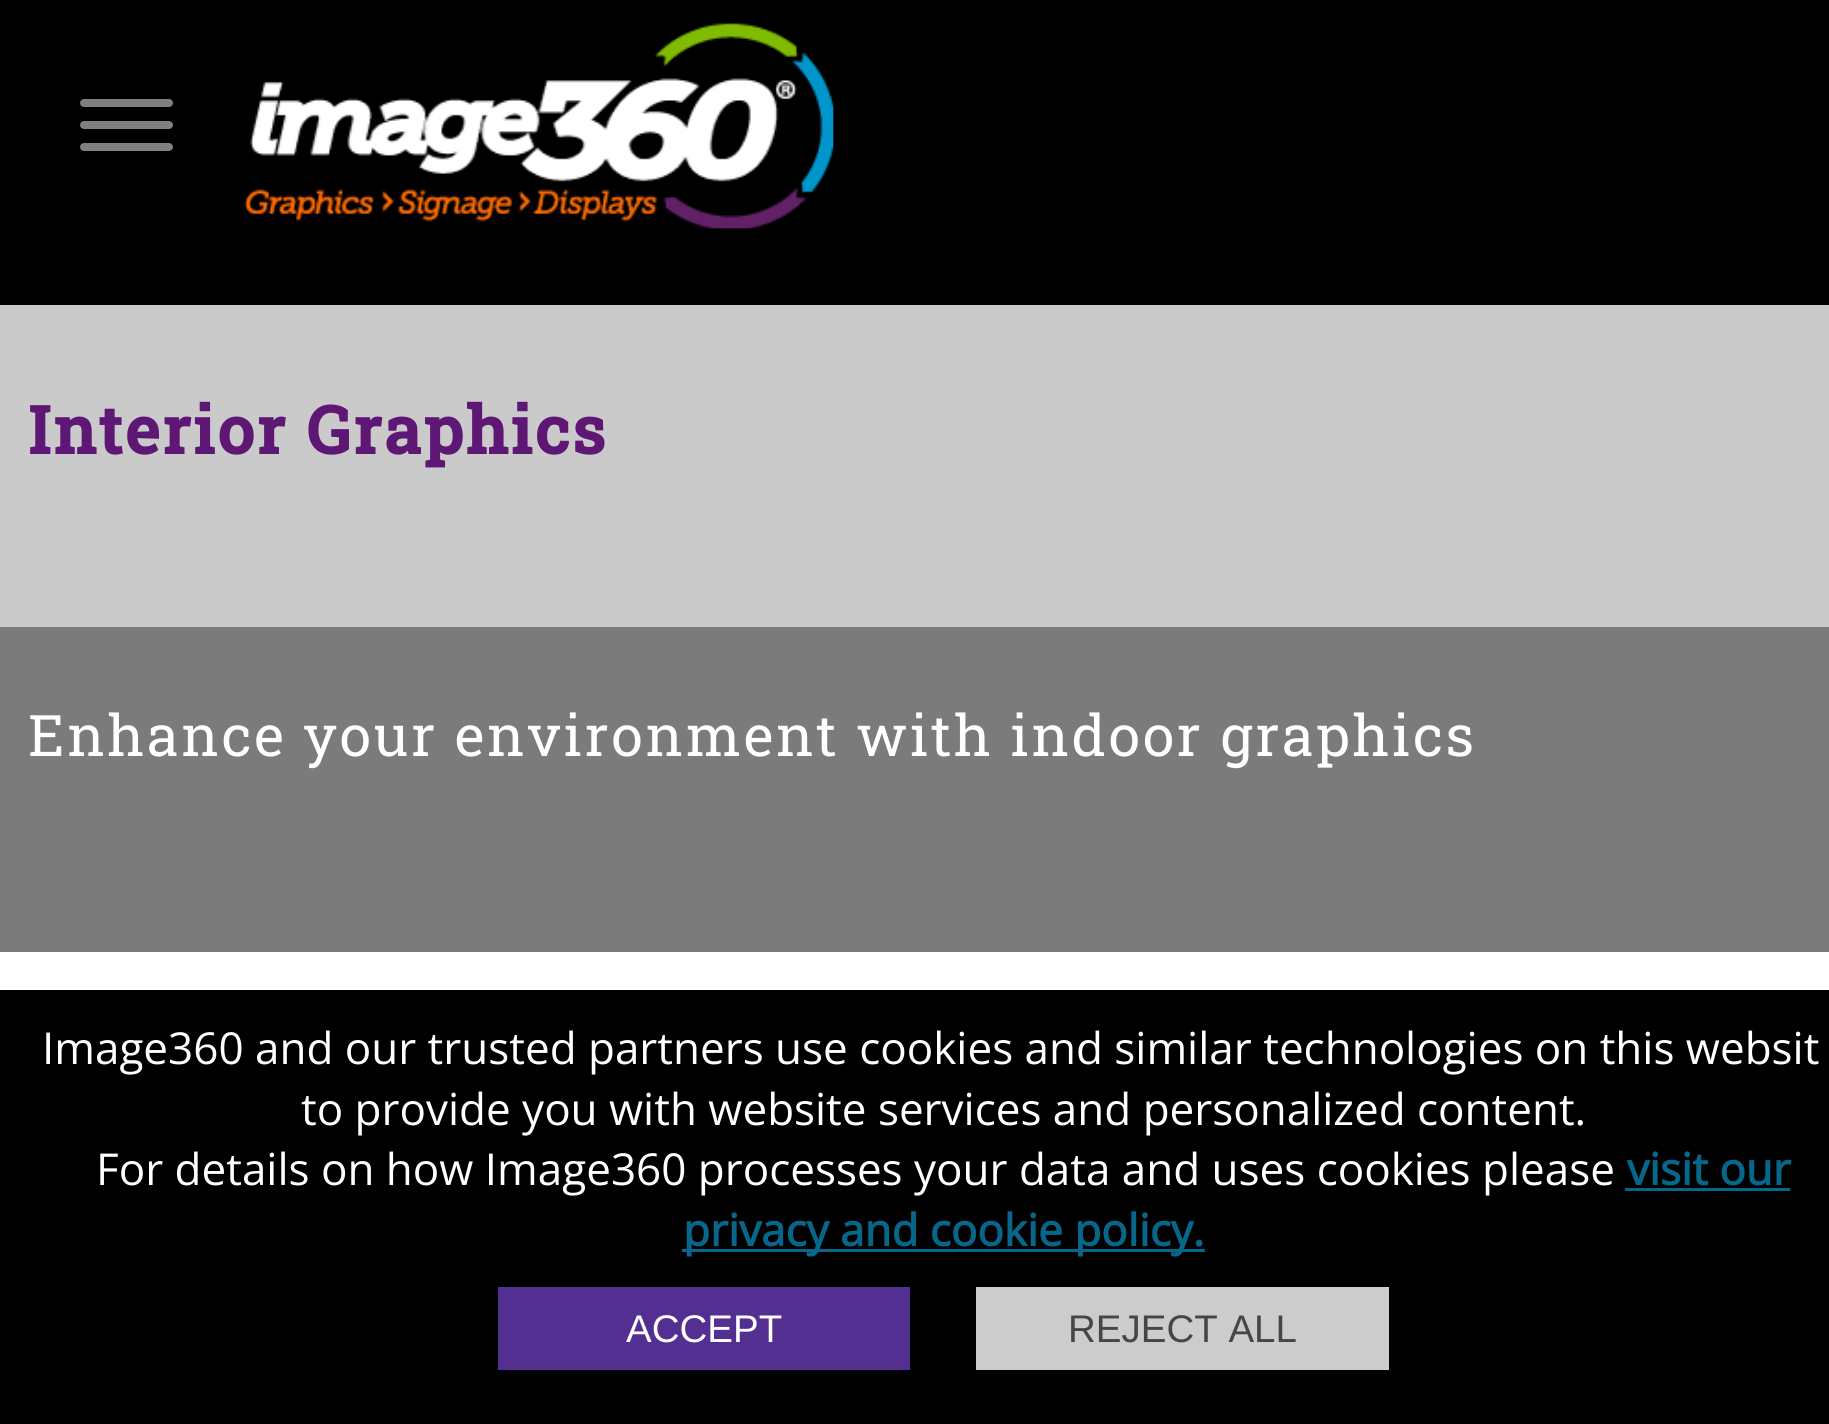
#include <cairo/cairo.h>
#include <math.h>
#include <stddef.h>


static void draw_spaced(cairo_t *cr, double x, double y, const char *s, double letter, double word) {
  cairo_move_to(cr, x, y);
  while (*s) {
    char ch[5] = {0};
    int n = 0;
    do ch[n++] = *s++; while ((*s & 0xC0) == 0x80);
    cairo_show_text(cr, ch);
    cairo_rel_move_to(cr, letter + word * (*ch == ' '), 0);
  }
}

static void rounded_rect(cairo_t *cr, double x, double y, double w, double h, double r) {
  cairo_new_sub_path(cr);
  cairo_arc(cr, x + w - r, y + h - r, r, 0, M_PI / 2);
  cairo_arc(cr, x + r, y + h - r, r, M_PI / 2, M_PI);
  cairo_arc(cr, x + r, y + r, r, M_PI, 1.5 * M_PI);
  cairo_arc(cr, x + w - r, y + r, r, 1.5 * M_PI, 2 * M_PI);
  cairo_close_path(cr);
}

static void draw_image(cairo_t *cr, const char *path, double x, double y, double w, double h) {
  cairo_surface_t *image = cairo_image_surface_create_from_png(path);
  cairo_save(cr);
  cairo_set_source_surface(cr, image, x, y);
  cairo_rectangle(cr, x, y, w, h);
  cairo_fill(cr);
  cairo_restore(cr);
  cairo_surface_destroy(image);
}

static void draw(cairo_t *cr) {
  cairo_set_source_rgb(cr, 1, 1, 1);
  cairo_paint(cr);
  cairo_set_source_rgb(cr, 0, 0, 0);
  cairo_rectangle(cr, 0, 0, 1829, 305);
  cairo_fill(cr);
  cairo_set_source_rgb(cr, 128 / 255.0, 128 / 255.0, 128 / 255.0);
  rounded_rect(cr, 81.5, 100.5, 90, 5, 2.5);
  cairo_fill_preserve(cr);
  cairo_set_line_width(cr, 3);
  cairo_stroke(cr);
  rounded_rect(cr, 81.5, 122.5, 90, 5, 2.5);
  cairo_fill_preserve(cr);
  cairo_stroke(cr);
  rounded_rect(cr, 81.5, 144.5, 90, 5, 2.5);
  cairo_fill_preserve(cr);
  cairo_stroke(cr);
  draw_image(cr, "images/1.png", 244, 23, 590, 206);
  cairo_set_source_rgb(cr, 202 / 255.0, 202 / 255.0, 202 / 255.0);
  cairo_rectangle(cr, 0, 305, 1829, 322);
  cairo_fill(cr);
  cairo_set_source_rgb(cr, 123 / 255.0, 123 / 255.0, 123 / 255.0);
  cairo_rectangle(cr, 0, 627, 1829, 325);
  cairo_fill(cr);
  cairo_set_source_rgb(cr, 0, 0, 0);
  cairo_rectangle(cr, 0, 990, 1829, 434);
  cairo_fill(cr);
  cairo_set_source_rgb(cr, 6 / 255.0, 103 / 255.0, 138 / 255.0);
  cairo_rectangle(cr, 1625, 1188, 165, 3);
  cairo_fill(cr);
  cairo_rectangle(cr, 682, 1249, 523, 3);
  cairo_fill(cr);
  cairo_set_source_rgb(cr, 82 / 255.0, 47 / 255.0, 145 / 255.0);
  cairo_rectangle(cr, 498, 1287, 412, 83);
  cairo_fill(cr);
  cairo_set_source_rgb(cr, 204 / 255.0, 204 / 255.0, 204 / 255.0);
  cairo_rectangle(cr, 976, 1287, 413, 83);
  cairo_fill(cr);
  cairo_select_font_face(cr, "Roboto Slab", CAIRO_FONT_SLANT_NORMAL, CAIRO_FONT_WEIGHT_BOLD);
  cairo_set_font_size(cr, 66);
  cairo_set_source_rgb(cr, 94 / 255.0, 23 / 255.0, 116 / 255.0);
  draw_spaced(cr, 28, 454, "Interior Graphics", 2.75, 0);
  cairo_select_font_face(cr, "Roboto Slab", CAIRO_FONT_SLANT_NORMAL, CAIRO_FONT_WEIGHT_NORMAL);
  cairo_set_font_size(cr, 57.2);
  cairo_set_source_rgb(cr, 1, 1, 1);
  draw_spaced(cr, 28, 756, "Enhance your environment with indoor graphics", 2.75, 0);
  cairo_select_font_face(cr, "Open Sans", CAIRO_FONT_SLANT_NORMAL, CAIRO_FONT_WEIGHT_NORMAL);
  cairo_set_font_size(cr, 44);
  cairo_move_to(cr, 42, 1064);
  cairo_show_text(cr, "Image360 and our trusted partners use cookies and similar technologies on this websit");
  cairo_move_to(cr, 301, 1125);
  cairo_show_text(cr, "to provide you with website services and personalized content.");
  cairo_move_to(cr, 96, 1185);
  cairo_show_text(cr, "For details on how Image360 processes your data and uses cookies please");
  cairo_select_font_face(cr, "Open Sans", CAIRO_FONT_SLANT_NORMAL, CAIRO_FONT_WEIGHT_BOLD);
  cairo_set_source_rgb(cr, 6 / 255.0, 103 / 255.0, 138 / 255.0);
  cairo_move_to(cr, 1627, 1185);
  cairo_show_text(cr, "visit our");
  cairo_move_to(cr, 683, 1246);
  cairo_show_text(cr, "privacy and cookie policy.");
  cairo_select_font_face(cr, "Liberation Sans", CAIRO_FONT_SLANT_NORMAL, CAIRO_FONT_WEIGHT_NORMAL);
  cairo_set_font_size(cr, 38.5);
  cairo_set_source_rgb(cr, 1, 1, 1);
  cairo_move_to(cr, 626, 1342);
  cairo_show_text(cr, "ACCEPT");
  cairo_set_source_rgb(cr, 70 / 255.0, 70 / 255.0, 70 / 255.0);
  cairo_move_to(cr, 1068, 1342);
  cairo_show_text(cr, "REJECT ALL");
}

int main(void) {
  cairo_surface_t *surface = cairo_image_surface_create(CAIRO_FORMAT_RGB24, 1829, 1424);
  cairo_t *cr = cairo_create(surface);
  cairo_font_options_t *options = cairo_font_options_create();
  cairo_font_options_set_hint_metrics(options, CAIRO_HINT_METRICS_OFF);
  cairo_font_options_set_hint_style(options, CAIRO_HINT_STYLE_NONE);
  cairo_set_font_options(cr, options);
  cairo_set_miter_limit(cr, 4);
  draw(cr);
  cairo_surface_write_to_png(surface, "out.png");
  cairo_font_options_destroy(options);
  cairo_destroy(cr);
  cairo_surface_destroy(surface);
  return 0;
}
